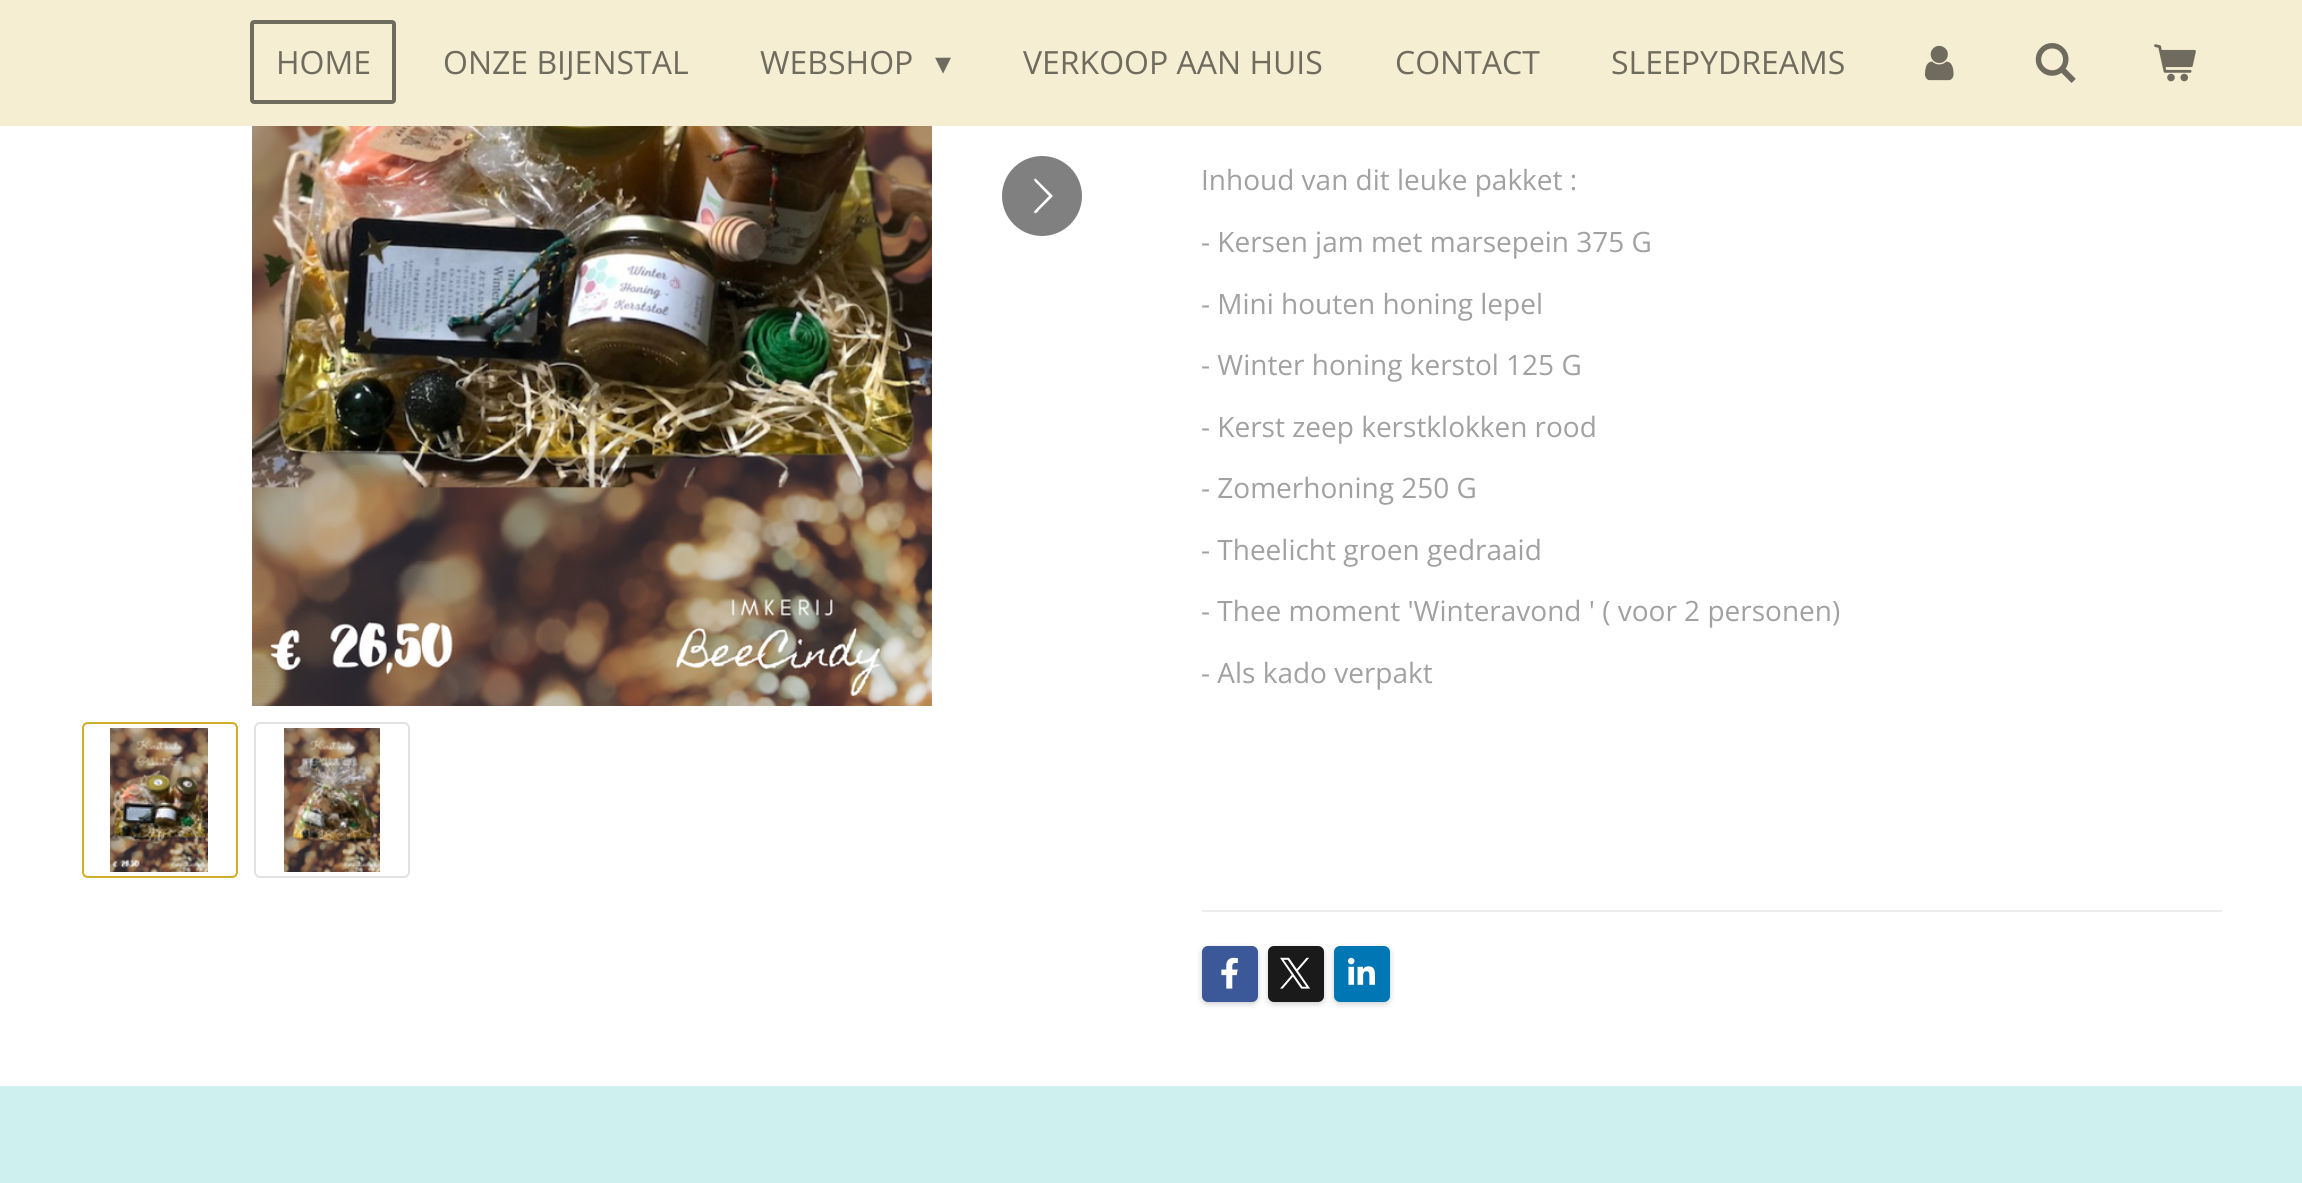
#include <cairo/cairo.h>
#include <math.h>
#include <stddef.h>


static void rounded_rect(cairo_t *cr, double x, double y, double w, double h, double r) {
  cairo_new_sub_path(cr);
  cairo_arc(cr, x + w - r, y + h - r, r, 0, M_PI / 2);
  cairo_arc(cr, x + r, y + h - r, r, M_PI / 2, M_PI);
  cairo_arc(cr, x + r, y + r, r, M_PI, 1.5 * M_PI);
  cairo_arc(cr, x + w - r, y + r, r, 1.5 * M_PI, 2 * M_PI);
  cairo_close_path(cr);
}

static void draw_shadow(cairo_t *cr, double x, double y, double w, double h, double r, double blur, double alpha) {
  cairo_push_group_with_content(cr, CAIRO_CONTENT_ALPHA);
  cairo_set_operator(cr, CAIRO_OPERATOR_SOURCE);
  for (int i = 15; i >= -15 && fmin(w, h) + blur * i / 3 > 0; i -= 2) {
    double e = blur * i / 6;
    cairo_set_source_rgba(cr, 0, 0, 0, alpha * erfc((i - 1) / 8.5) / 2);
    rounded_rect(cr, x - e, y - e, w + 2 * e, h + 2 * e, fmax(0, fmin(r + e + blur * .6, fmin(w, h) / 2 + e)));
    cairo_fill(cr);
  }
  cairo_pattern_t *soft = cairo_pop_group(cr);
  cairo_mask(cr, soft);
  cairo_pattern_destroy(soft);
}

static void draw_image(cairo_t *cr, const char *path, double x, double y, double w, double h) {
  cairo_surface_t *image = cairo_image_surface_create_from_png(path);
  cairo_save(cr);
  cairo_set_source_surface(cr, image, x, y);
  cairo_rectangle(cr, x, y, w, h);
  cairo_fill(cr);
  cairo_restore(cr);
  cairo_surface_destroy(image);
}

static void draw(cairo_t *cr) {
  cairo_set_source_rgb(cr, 1, 1, 1);
  cairo_paint(cr);
  cairo_set_source_rgb(cr, 246 / 255.0, 238 / 255.0, 210 / 255.0);
  cairo_rectangle(cr, 0, 0, 2302, 126);
  cairo_fill(cr);
  rounded_rect(cr, 252, 22, 142, 80, 2);
  cairo_set_source_rgb(cr, 111 / 255.0, 107 / 255.0, 94 / 255.0);
  cairo_set_line_width(cr, 4);
  cairo_stroke(cr);
  draw_image(cr, "images/1.png", 1925, 45, 29, 36);
  draw_image(cr, "images/2.png", 2035, 43, 41, 40);
  draw_image(cr, "images/3.png", 2154, 44, 42, 38);
  draw_image(cr, "images/4.png", 252, 126, 680, 580);
  cairo_set_source_rgb(cr, 128 / 255.0, 128 / 255.0, 128 / 255.0);
  cairo_arc(cr, 1042, 196, 40, 0, 2 * M_PI);
  cairo_fill(cr);
  cairo_set_source_rgb(cr, 1, 1, 1);
  cairo_new_path(cr);
  cairo_move_to(cr, 1034.5, 211);
  cairo_line_to(cr, 1049, 196);
  cairo_line_to(cr, 1037, 183.5);
  cairo_curve_to(cr, 1036.5, 183, 1032, 179.5, 1035.5, 178.5);
  cairo_line_to(cr, 1036, 179);
  cairo_line_to(cr, 1052.5, 195.5);
  cairo_line_to(cr, 1052.5, 196.5);
  cairo_line_to(cr, 1039, 210);
  cairo_curve_to(cr, 1039, 210.5, 1035, 215.5, 1034, 212);
  cairo_close_path(cr);
  cairo_fill(cr);
  rounded_rect(cr, 83, 723, 154, 154, 5);
  cairo_set_source_rgb(cr, 210 / 255.0, 173 / 255.0, 42 / 255.0);
  cairo_set_line_width(cr, 2);
  cairo_stroke(cr);
  draw_image(cr, "images/5.png", 110, 728, 98, 144);
  rounded_rect(cr, 255, 723, 154, 154, 5);
  cairo_set_source_rgb(cr, 227 / 255.0, 227 / 255.0, 227 / 255.0);
  cairo_stroke(cr);
  draw_image(cr, "images/6.png", 284, 728, 96, 144);
  cairo_set_source_rgb(cr, 236 / 255.0, 236 / 255.0, 236 / 255.0);
  cairo_rectangle(cr, 1202, 910, 1020, 2);
  cairo_fill(cr);
  cairo_set_source_rgb(cr, 0, 0, 0);
  draw_shadow(cr, 1202, 948, 56, 56, 6, 3, 0.2);
  cairo_set_source_rgb(cr, 59 / 255.0, 89 / 255.0, 152 / 255.0);
  rounded_rect(cr, 1202, 946, 56, 56, 6);
  cairo_fill(cr);
  draw_image(cr, "images/7.png", 1221, 957, 17, 32);
  cairo_set_source_rgb(cr, 0, 0, 0);
  draw_shadow(cr, 1268, 948, 56, 56, 6, 3, 0.2);
  cairo_set_source_rgb(cr, 26 / 255.0, 26 / 255.0, 26 / 255.0);
  rounded_rect(cr, 1268, 946, 56, 56, 6);
  cairo_fill(cr);
  draw_image(cr, "images/8.png", 1280, 957, 30, 32);
  cairo_set_source_rgb(cr, 0, 0, 0);
  draw_shadow(cr, 1334, 948, 56, 56, 6, 3, 0.2);
  cairo_set_source_rgb(cr, 0, 119 / 255.0, 181 / 255.0);
  rounded_rect(cr, 1334, 946, 56, 56, 6);
  cairo_fill(cr);
  draw_image(cr, "images/9.png", 1348, 957, 27, 28);
  cairo_set_source_rgb(cr, 206 / 255.0, 240 / 255.0, 238 / 255.0);
  cairo_rectangle(cr, 0, 1086, 2302, 97);
  cairo_fill(cr);
  cairo_select_font_face(cr, "Open Sans", CAIRO_FONT_SLANT_NORMAL, CAIRO_FONT_WEIGHT_NORMAL);
  cairo_set_font_size(cr, 32);
  cairo_set_source_rgb(cr, 111 / 255.0, 107 / 255.0, 94 / 255.0);
  cairo_move_to(cr, 276, 74);
  cairo_show_text(cr, "HOME");
  cairo_move_to(cr, 443, 74);
  cairo_show_text(cr, "ONZE BIJENSTAL");
  cairo_move_to(cr, 760, 74);
  cairo_show_text(cr, "WEBSHOP");
  cairo_select_font_face(cr, "DejaVu Sans", CAIRO_FONT_SLANT_NORMAL, CAIRO_FONT_WEIGHT_NORMAL);
  cairo_move_to(cr, 935, 74);
  cairo_show_text(cr, "▾");
  cairo_select_font_face(cr, "Open Sans", CAIRO_FONT_SLANT_NORMAL, CAIRO_FONT_WEIGHT_NORMAL);
  cairo_move_to(cr, 1023, 74);
  cairo_show_text(cr, "VERKOOP AAN HUIS");
  cairo_move_to(cr, 1395, 74);
  cairo_show_text(cr, "CONTACT");
  cairo_move_to(cr, 1611, 74);
  cairo_show_text(cr, "SLEEPYDREAMS");
  cairo_set_font_size(cr, 28);
  cairo_set_source_rgb(cr, 161 / 255.0, 161 / 255.0, 161 / 255.0);
  cairo_move_to(cr, 1201, 190);
  cairo_show_text(cr, "Inhoud van dit leuke pakket :");
  cairo_move_to(cr, 1201, 252);
  cairo_show_text(cr, "- Kersen jam met marsepein 375 G");
  cairo_move_to(cr, 1201, 314);
  cairo_show_text(cr, "- Mini houten honing lepel");
  cairo_move_to(cr, 1201, 375);
  cairo_show_text(cr, "- Winter honing kerstol 125 G");
  cairo_move_to(cr, 1201, 437);
  cairo_show_text(cr, "- Kerst zeep kerstklokken rood");
  cairo_move_to(cr, 1201, 498);
  cairo_show_text(cr, "- Zomerhoning 250 G");
  cairo_move_to(cr, 1201, 560);
  cairo_show_text(cr, "- Theelicht groen gedraaid");
  cairo_move_to(cr, 1201, 621);
  cairo_show_text(cr, "- Thee moment 'Winteravond ' ( voor 2 personen)");
  cairo_move_to(cr, 1201, 683);
  cairo_show_text(cr, "- Als kado verpakt");
}

int main(void) {
  cairo_surface_t *surface = cairo_image_surface_create(CAIRO_FORMAT_RGB24, 2302, 1183);
  cairo_t *cr = cairo_create(surface);
  cairo_font_options_t *options = cairo_font_options_create();
  cairo_font_options_set_hint_metrics(options, CAIRO_HINT_METRICS_OFF);
  cairo_font_options_set_hint_style(options, CAIRO_HINT_STYLE_NONE);
  cairo_set_font_options(cr, options);
  cairo_set_miter_limit(cr, 4);
  draw(cr);
  cairo_surface_write_to_png(surface, "out.png");
  cairo_font_options_destroy(options);
  cairo_destroy(cr);
  cairo_surface_destroy(surface);
  return 0;
}
